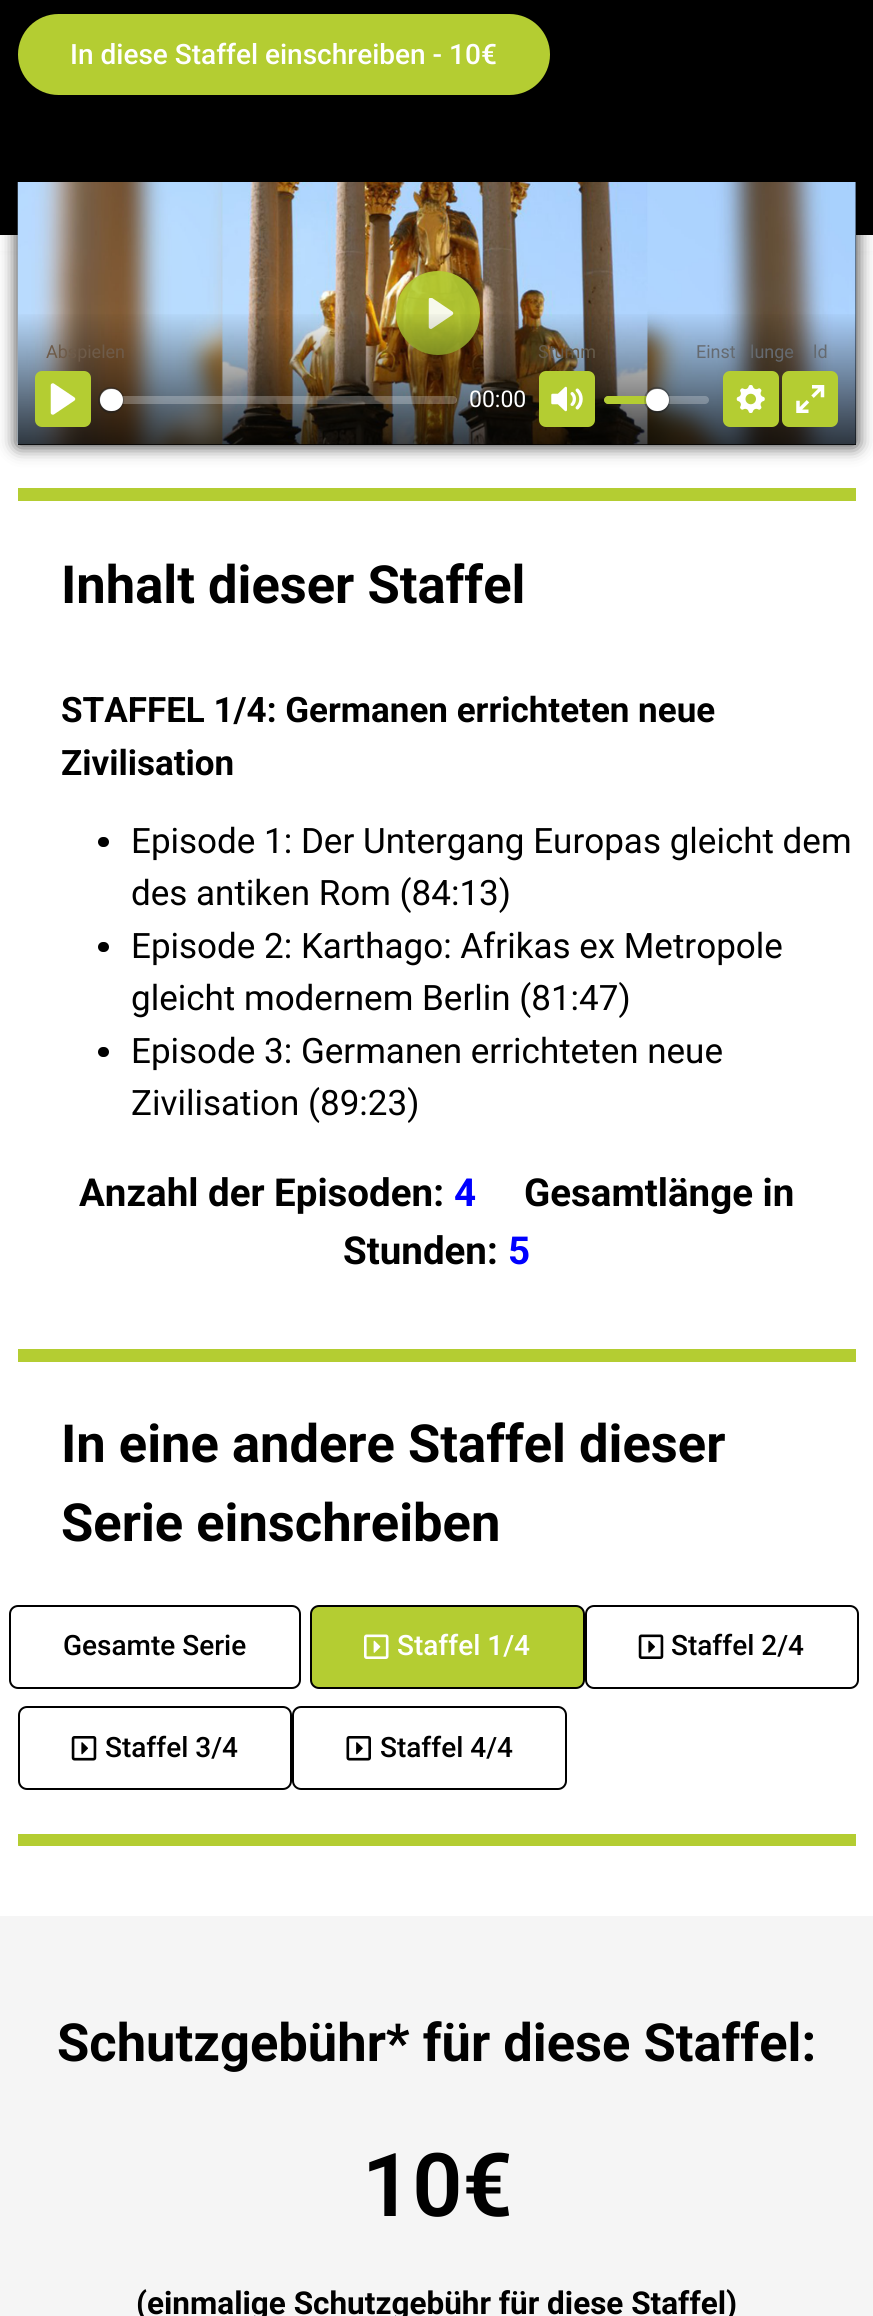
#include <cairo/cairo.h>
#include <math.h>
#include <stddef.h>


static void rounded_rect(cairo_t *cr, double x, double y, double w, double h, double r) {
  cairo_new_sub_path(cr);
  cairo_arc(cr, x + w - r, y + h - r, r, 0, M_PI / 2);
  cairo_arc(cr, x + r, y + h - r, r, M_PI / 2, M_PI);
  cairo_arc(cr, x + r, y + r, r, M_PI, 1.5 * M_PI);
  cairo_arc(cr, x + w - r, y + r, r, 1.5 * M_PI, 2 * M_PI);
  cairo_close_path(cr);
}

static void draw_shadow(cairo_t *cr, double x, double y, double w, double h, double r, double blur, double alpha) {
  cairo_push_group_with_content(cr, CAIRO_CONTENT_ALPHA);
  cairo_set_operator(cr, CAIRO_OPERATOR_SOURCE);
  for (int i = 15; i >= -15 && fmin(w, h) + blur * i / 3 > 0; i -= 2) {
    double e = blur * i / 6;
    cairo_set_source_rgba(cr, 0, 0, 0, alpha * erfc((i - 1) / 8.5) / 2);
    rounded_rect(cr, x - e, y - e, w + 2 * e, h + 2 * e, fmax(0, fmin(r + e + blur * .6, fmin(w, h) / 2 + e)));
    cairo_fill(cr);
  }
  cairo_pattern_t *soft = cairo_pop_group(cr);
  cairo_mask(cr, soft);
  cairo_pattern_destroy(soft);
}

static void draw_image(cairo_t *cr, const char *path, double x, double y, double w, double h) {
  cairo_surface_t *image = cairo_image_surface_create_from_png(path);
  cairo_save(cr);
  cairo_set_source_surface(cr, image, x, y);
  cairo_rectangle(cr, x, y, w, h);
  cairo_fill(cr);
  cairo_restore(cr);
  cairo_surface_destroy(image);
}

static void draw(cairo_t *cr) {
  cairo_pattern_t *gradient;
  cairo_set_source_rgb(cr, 1, 1, 1);
  cairo_paint(cr);
  cairo_set_source_rgb(cr, 0, 0, 0);
  cairo_rectangle(cr, 0, 0, 873, 235);
  cairo_fill(cr);
  cairo_set_source_rgb(cr, 0, 0, 0);
  draw_shadow(cr, 0, -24, 873, 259, 0, 8, 0.45);
  cairo_set_source_rgb(cr, 180 / 255.0, 205 / 255.0, 50 / 255.0);
  rounded_rect(cr, 18, 14, 532, 81, 40.5);
  cairo_fill(cr);
  cairo_set_source_rgb(cr, 1, 1, 1);
  cairo_rectangle(cr, 0, 235, 873, 16);
  cairo_fill(cr);
  cairo_set_source_rgb(cr, 0, 0, 0);
  draw_shadow(cr, 18, 182, 838, 263, 0, 9, 0.86);
  cairo_set_source_rgb(cr, 0, 0, 0);
  cairo_rectangle(cr, 18, 235, 838, 210);
  cairo_fill(cr);
  draw_image(cr, "images/1.png", 17, 182, 839, 263);
  cairo_set_source_rgba(cr, 180 / 255.0, 205 / 255.0, 50 / 255.0, 0.9);
  cairo_arc(cr, 438, 313, 42, 0, 2 * M_PI);
  cairo_fill(cr);
  draw_image(cr, "images/2.png", 428, 298, 26, 31);
  gradient = cairo_pattern_create_linear(437, 310, 437, 445);
  cairo_pattern_add_color_stop_rgba(gradient, 0, 0, 0, 0, 0);
  cairo_pattern_add_color_stop_rgba(gradient, 1, 0, 0, 0, 0.75);
  cairo_set_source(cr, gradient);
  cairo_pattern_destroy(gradient);
  cairo_rectangle(cr, 18, 314, 838, 131);
  cairo_fill(cr);
  cairo_set_source_rgb(cr, 180 / 255.0, 205 / 255.0, 50 / 255.0);
  rounded_rect(cr, 35, 371, 56, 56, 7);
  cairo_fill(cr);
  draw_image(cr, "images/3.png", 50, 383, 26, 32);
  rounded_rect(cr, 539, 371, 56, 56, 7);
  cairo_fill(cr);
  draw_image(cr, "images/4.png", 551, 386, 32, 26);
  cairo_set_source_rgba(cr, 1, 1, 1, 0.25);
  rounded_rect(cr, 604, 396, 105, 8, 4);
  cairo_fill(cr);
  cairo_set_source_rgb(cr, 180 / 255.0, 205 / 255.0, 50 / 255.0);
  cairo_new_path(cr);
  cairo_move_to(cr, 608, 396);
  cairo_line_to(cr, 656, 396);
  cairo_line_to(cr, 656, 404);
  cairo_line_to(cr, 608, 404);
  cairo_curve_to(cr, 606, 404, 604, 402, 604, 400);
  cairo_curve_to(cr, 604, 398, 606, 396, 608, 396);
  cairo_close_path(cr);
  cairo_fill(cr);
  cairo_arc(cr, 657, 400, 12, 0, 2 * M_PI);
  cairo_set_source_rgba(cr, 35 / 255.0, 40 / 255.0, 47 / 255.0, 0.2);
  cairo_stroke(cr);
  cairo_set_source_rgb(cr, 35 / 255.0, 40 / 255.0, 47 / 255.0);
  draw_shadow(cr, 646, 390, 23, 23, 11.5, 1, 0.15);
  cairo_set_source_rgb(cr, 1, 1, 1);
  rounded_rect(cr, 646, 389, 23, 22, 11);
  cairo_fill(cr);
  cairo_set_source_rgb(cr, 180 / 255.0, 205 / 255.0, 50 / 255.0);
  rounded_rect(cr, 723, 371, 56, 56, 7);
  cairo_fill(cr);
  draw_image(cr, "images/5.png", 736, 385, 29, 28);
  rounded_rect(cr, 782, 371, 56, 56, 7);
  cairo_fill(cr);
  draw_image(cr, "images/6.png", 796, 385, 29, 28);
  cairo_set_source_rgba(cr, 1, 1, 1, 0.25);
  rounded_rect(cr, 100, 396, 357, 8, 4);
  cairo_fill(cr);
  cairo_arc(cr, 111, 400, 12, 0, 2 * M_PI);
  cairo_set_source_rgba(cr, 35 / 255.0, 40 / 255.0, 47 / 255.0, 0.2);
  cairo_stroke(cr);
  cairo_set_source_rgb(cr, 35 / 255.0, 40 / 255.0, 47 / 255.0);
  draw_shadow(cr, 100, 390, 23, 23, 11.5, 1, 0.15);
  cairo_set_source_rgb(cr, 1, 1, 1);
  rounded_rect(cr, 100, 389, 23, 22, 11);
  cairo_fill(cr);
  cairo_set_source_rgb(cr, 180 / 255.0, 205 / 255.0, 50 / 255.0);
  cairo_rectangle(cr, 18, 488, 838, 13);
  cairo_fill(cr);
  cairo_set_source_rgb(cr, 0, 0, 0);
  rounded_rect(cr, 98, 837, 11, 10, 5);
  cairo_fill(cr);
  rounded_rect(cr, 98, 942, 11, 10, 5);
  cairo_fill(cr);
  rounded_rect(cr, 98, 1047, 11, 10, 5);
  cairo_fill(cr);
  cairo_set_source_rgb(cr, 180 / 255.0, 205 / 255.0, 50 / 255.0);
  cairo_rectangle(cr, 18, 1349, 838, 13);
  cairo_fill(cr);
  rounded_rect(cr, 10, 1606, 290, 82, 8);
  cairo_set_source_rgb(cr, 0, 0, 0);
  cairo_stroke(cr);
  cairo_set_source_rgb(cr, 180 / 255.0, 205 / 255.0, 50 / 255.0);
  rounded_rect(cr, 311, 1606, 273, 82, 8);
  cairo_fill_preserve(cr);
  cairo_set_source_rgb(cr, 0, 0, 0);
  cairo_stroke(cr);
  draw_image(cr, "images/7.png", 364, 1634, 25, 25);
  rounded_rect(cr, 586, 1606, 272, 82, 8);
  cairo_stroke(cr);
  draw_image(cr, "images/8.png", 638, 1634, 26, 25);
  rounded_rect(cr, 19, 1707, 272, 82, 8);
  cairo_stroke(cr);
  draw_image(cr, "images/9.png", 71, 1736, 26, 25);
  rounded_rect(cr, 293, 1707, 273, 82, 8);
  cairo_stroke(cr);
  draw_image(cr, "images/10.png", 346, 1736, 25, 25);
  cairo_set_source_rgb(cr, 180 / 255.0, 205 / 255.0, 50 / 255.0);
  cairo_rectangle(cr, 18, 1834, 838, 12);
  cairo_fill(cr);
  cairo_set_source_rgb(cr, 245 / 255.0, 245 / 255.0, 245 / 255.0);
  cairo_rectangle(cr, 0, 1916, 873, 400);
  cairo_fill(cr);
  cairo_select_font_face(cr, "Roboto Medium", CAIRO_FONT_SLANT_NORMAL, CAIRO_FONT_WEIGHT_NORMAL);
  cairo_set_font_size(cr, 28);
  cairo_set_source_rgb(cr, 1, 1, 1);
  cairo_move_to(cr, 70, 64);
  cairo_show_text(cr, "In diese Staffel einschreiben - 10€");
  cairo_select_font_face(cr, "Roboto", CAIRO_FONT_SLANT_NORMAL, CAIRO_FONT_WEIGHT_NORMAL);
  cairo_set_font_size(cr, 18);
  cairo_set_source_rgb(cr, 110 / 255.0, 91 / 255.0, 73 / 255.0);
  cairo_move_to(cr, 46, 358);
  cairo_show_text(cr, "Abspielen");
  cairo_set_source_rgb(cr, 101 / 255.0, 90 / 255.0, 74 / 255.0);
  cairo_move_to(cr, 538, 358);
  cairo_show_text(cr, "Stumm");
  cairo_set_source_rgb(cr, 101 / 255.0, 106 / 255.0, 112 / 255.0);
  cairo_move_to(cr, 696, 358);
  cairo_show_text(cr, "Einst");
  cairo_move_to(cr, 750, 358);
  cairo_show_text(cr, "lunge");
  cairo_move_to(cr, 813, 358);
  cairo_show_text(cr, "ld");
  cairo_set_font_size(cr, 23);
  cairo_set_source_rgb(cr, 1, 1, 1);
  cairo_move_to(cr, 469, 407);
  cairo_show_text(cr, "00:00");
  cairo_select_font_face(cr, "Roboto", CAIRO_FONT_SLANT_NORMAL, CAIRO_FONT_WEIGHT_BOLD);
  cairo_set_font_size(cr, 52.5);
  cairo_set_source_rgb(cr, 0, 0, 0);
  cairo_move_to(cr, 61, 603);
  cairo_show_text(cr, "Inhalt dieser Staffel");
  cairo_set_font_size(cr, 35);
  cairo_move_to(cr, 61, 722);
  cairo_show_text(cr, "STAFFEL 1/4: Germanen errichteten neue");
  cairo_move_to(cr, 61, 775);
  cairo_show_text(cr, "Zivilisation");
  cairo_select_font_face(cr, "Roboto", CAIRO_FONT_SLANT_NORMAL, CAIRO_FONT_WEIGHT_NORMAL);
  cairo_move_to(cr, 131, 853);
  cairo_show_text(cr, "Episode 1: Der Untergang Europas gleicht dem");
  cairo_move_to(cr, 131, 905);
  cairo_show_text(cr, "des antiken Rom (84:13)");
  cairo_move_to(cr, 131, 958);
  cairo_show_text(cr, "Episode 2: Karthago: Afrikas ex Metropole");
  cairo_move_to(cr, 131, 1010);
  cairo_show_text(cr, "gleicht modernem Berlin (81:47)");
  cairo_move_to(cr, 131, 1063);
  cairo_show_text(cr, "Episode 3: Germanen errichteten neue");
  cairo_move_to(cr, 131, 1115);
  cairo_show_text(cr, "Zivilisation (89:23)");
  cairo_select_font_face(cr, "Roboto", CAIRO_FONT_SLANT_NORMAL, CAIRO_FONT_WEIGHT_BOLD);
  cairo_set_font_size(cr, 38.5);
  cairo_move_to(cr, 79, 1206);
  cairo_show_text(cr, "Anzahl der Episoden:");
  cairo_set_source_rgb(cr, 0, 0, 1);
  cairo_move_to(cr, 454, 1206);
  cairo_show_text(cr, "4");
  cairo_set_source_rgb(cr, 0, 0, 0);
  cairo_move_to(cr, 524, 1206);
  cairo_show_text(cr, "Gesamtlänge in");
  cairo_move_to(cr, 343, 1264);
  cairo_show_text(cr, "Stunden:");
  cairo_set_source_rgb(cr, 0, 0, 1);
  cairo_move_to(cr, 508, 1264);
  cairo_show_text(cr, "5");
  cairo_set_font_size(cr, 52.5);
  cairo_set_source_rgb(cr, 0, 0, 0);
  cairo_move_to(cr, 61, 1462);
  cairo_show_text(cr, "In eine andere Staffel dieser");
  cairo_move_to(cr, 61, 1541);
  cairo_show_text(cr, "Serie einschreiben");
  cairo_select_font_face(cr, "Roboto Medium", CAIRO_FONT_SLANT_NORMAL, CAIRO_FONT_WEIGHT_NORMAL);
  cairo_set_font_size(cr, 28);
  cairo_move_to(cr, 63, 1655);
  cairo_show_text(cr, "Gesamte Serie");
  cairo_set_source_rgb(cr, 1, 1, 1);
  cairo_move_to(cr, 397, 1655);
  cairo_show_text(cr, "Staffel 1/4");
  cairo_set_source_rgb(cr, 0, 0, 0);
  cairo_move_to(cr, 671, 1655);
  cairo_show_text(cr, "Staffel 2/4");
  cairo_move_to(cr, 105, 1757);
  cairo_show_text(cr, "Staffel 3/4");
  cairo_move_to(cr, 380, 1757);
  cairo_show_text(cr, "Staffel 4/4");
  cairo_select_font_face(cr, "Roboto", CAIRO_FONT_SLANT_NORMAL, CAIRO_FONT_WEIGHT_BOLD);
  cairo_set_font_size(cr, 52.5);
  cairo_move_to(cr, 57, 2061);
  cairo_show_text(cr, "Schutzgebühr* für diese Staffel:");
  cairo_select_font_face(cr, "Roboto SemiBold", CAIRO_FONT_SLANT_NORMAL, CAIRO_FONT_WEIGHT_NORMAL);
  cairo_set_font_size(cr, 88);
  cairo_move_to(cr, 362, 2216);
  cairo_show_text(cr, "10€");
  cairo_select_font_face(cr, "Roboto", CAIRO_FONT_SLANT_NORMAL, CAIRO_FONT_WEIGHT_BOLD);
  cairo_set_font_size(cr, 31.5);
  cairo_move_to(cr, 136, 2314);
  cairo_show_text(cr, "(einmalige Schutzgebühr für diese Staffel)");
}

int main(void) {
  cairo_surface_t *surface = cairo_image_surface_create(CAIRO_FORMAT_RGB24, 873, 2316);
  cairo_t *cr = cairo_create(surface);
  cairo_font_options_t *options = cairo_font_options_create();
  cairo_font_options_set_hint_metrics(options, CAIRO_HINT_METRICS_OFF);
  cairo_font_options_set_hint_style(options, CAIRO_HINT_STYLE_NONE);
  cairo_set_font_options(cr, options);
  cairo_set_miter_limit(cr, 4);
  draw(cr);
  cairo_surface_write_to_png(surface, "out.png");
  cairo_font_options_destroy(options);
  cairo_destroy(cr);
  cairo_surface_destroy(surface);
  return 0;
}
